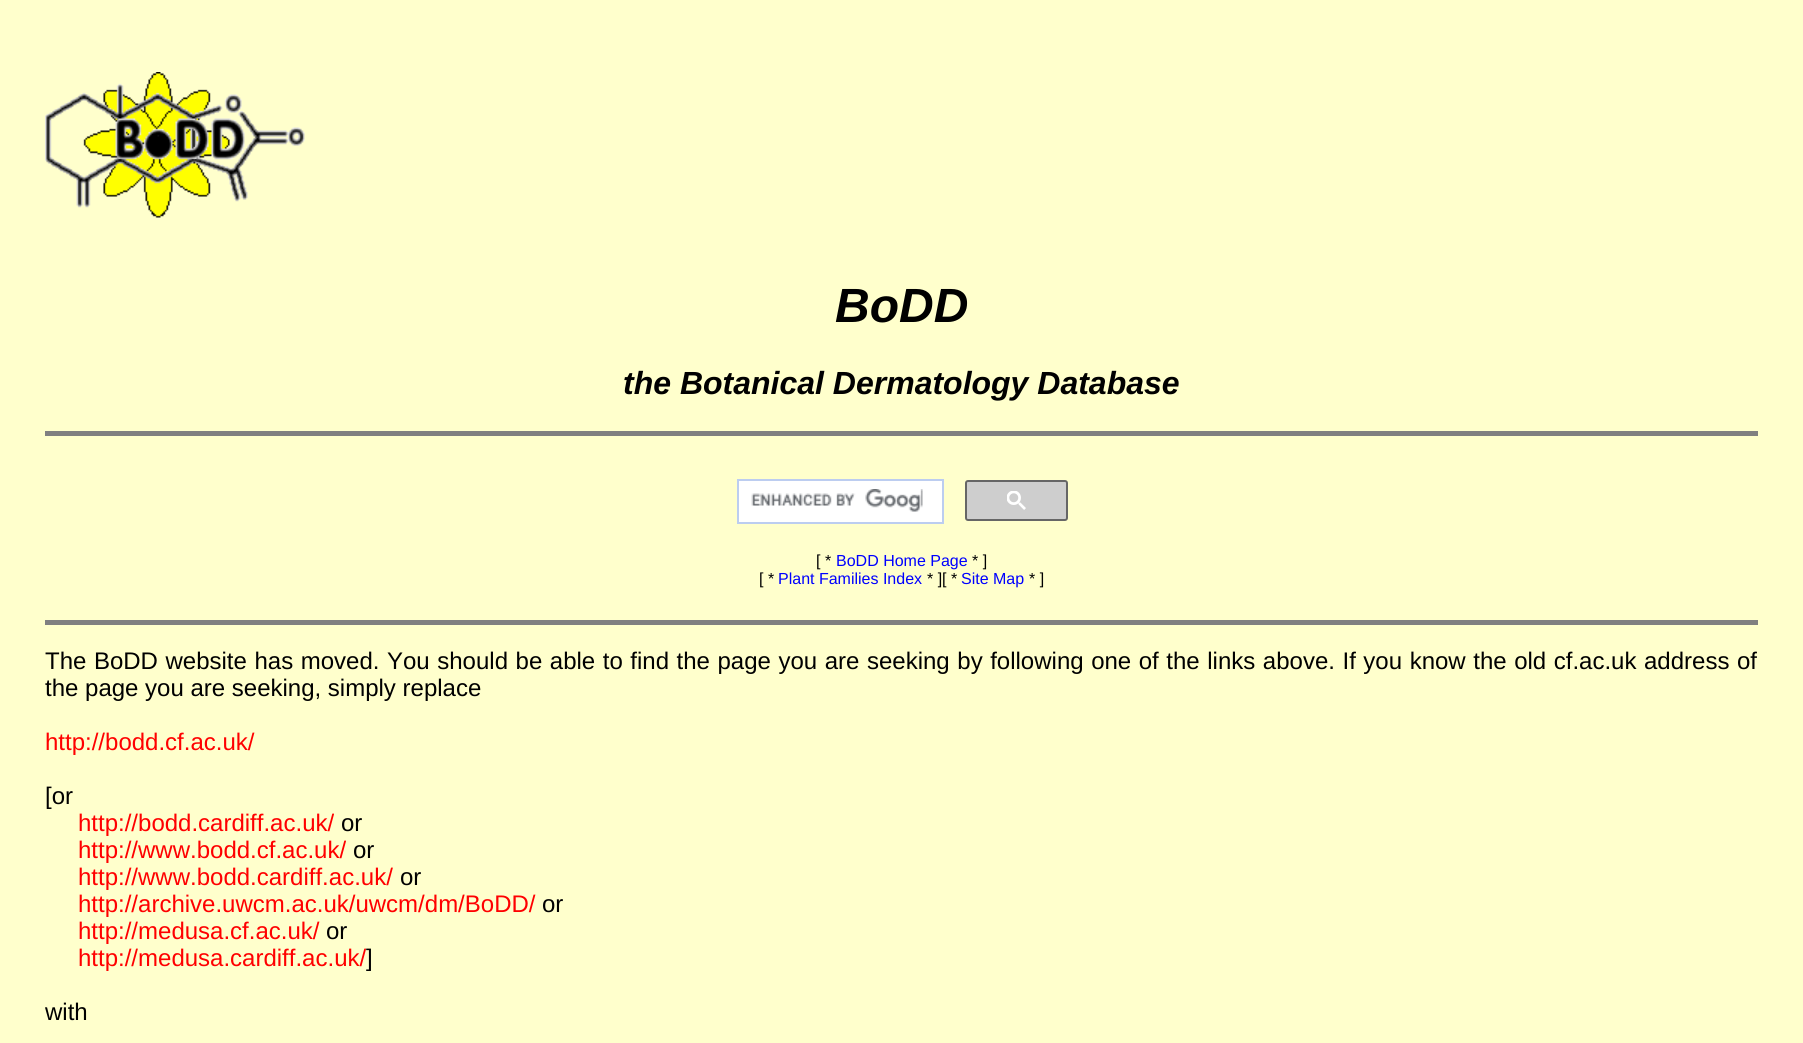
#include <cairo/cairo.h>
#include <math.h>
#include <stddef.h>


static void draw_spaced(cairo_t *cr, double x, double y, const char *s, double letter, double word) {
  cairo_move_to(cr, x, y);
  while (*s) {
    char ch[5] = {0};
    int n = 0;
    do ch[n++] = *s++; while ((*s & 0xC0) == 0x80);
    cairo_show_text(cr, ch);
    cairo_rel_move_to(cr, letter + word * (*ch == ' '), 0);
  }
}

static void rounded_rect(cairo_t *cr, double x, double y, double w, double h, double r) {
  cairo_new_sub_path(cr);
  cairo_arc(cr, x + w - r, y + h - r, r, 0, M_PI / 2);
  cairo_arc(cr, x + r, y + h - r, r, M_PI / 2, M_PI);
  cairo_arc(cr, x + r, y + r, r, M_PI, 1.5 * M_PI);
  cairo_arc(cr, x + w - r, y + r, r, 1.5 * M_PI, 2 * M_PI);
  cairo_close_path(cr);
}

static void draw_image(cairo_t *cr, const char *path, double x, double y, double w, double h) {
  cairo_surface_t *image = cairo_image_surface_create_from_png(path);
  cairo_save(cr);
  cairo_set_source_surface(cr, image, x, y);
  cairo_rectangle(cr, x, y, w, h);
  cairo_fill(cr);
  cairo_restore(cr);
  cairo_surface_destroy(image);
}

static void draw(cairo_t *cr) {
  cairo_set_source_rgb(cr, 1, 1, 204 / 255.0);
  cairo_paint(cr);
  draw_image(cr, "images/1.png", 45, 72, 260, 146);
  cairo_set_source_rgb(cr, 128 / 255.0, 128 / 255.0, 128 / 255.0);
  cairo_rectangle(cr, 45, 431, 1713, 5);
  cairo_fill(cr);
  cairo_set_source_rgb(cr, 1, 1, 1);
  cairo_rectangle(cr, 738, 480, 205, 43);
  cairo_fill_preserve(cr);
  cairo_set_source_rgb(cr, 188 / 255.0, 205 / 255.0, 240 / 255.0);
  cairo_stroke(cr);
  draw_image(cr, "images/2.png", 751, 489, 172, 23);
  cairo_set_source_rgb(cr, 206 / 255.0, 206 / 255.0, 206 / 255.0);
  rounded_rect(cr, 966, 481, 101, 39, 2);
  cairo_fill_preserve(cr);
  cairo_set_source_rgb(cr, 102 / 255.0, 102 / 255.0, 102 / 255.0);
  cairo_stroke(cr);
  draw_image(cr, "images/3.png", 1007, 491, 19, 19);
  cairo_set_source_rgb(cr, 128 / 255.0, 128 / 255.0, 128 / 255.0);
  cairo_rectangle(cr, 45, 620, 1713, 5);
  cairo_fill(cr);
  cairo_select_font_face(cr, "Liberation Sans", CAIRO_FONT_SLANT_ITALIC, CAIRO_FONT_WEIGHT_BOLD);
  cairo_set_font_size(cr, 48);
  cairo_set_source_rgb(cr, 0, 0, 0);
  cairo_move_to(cr, 835, 322);
  cairo_show_text(cr, "BoDD");
  cairo_set_font_size(cr, 32);
  cairo_move_to(cr, 623, 394);
  cairo_show_text(cr, "the Botanical Dermatology Database");
  cairo_select_font_face(cr, "Liberation Sans", CAIRO_FONT_SLANT_NORMAL, CAIRO_FONT_WEIGHT_NORMAL);
  cairo_set_font_size(cr, 16);
  cairo_move_to(cr, 816, 566);
  cairo_show_text(cr, "[ *");
  cairo_set_source_rgb(cr, 0, 0, 1);
  cairo_move_to(cr, 836, 566);
  cairo_show_text(cr, "BoDD Home Page");
  cairo_set_source_rgb(cr, 0, 0, 0);
  cairo_move_to(cr, 972, 566);
  cairo_show_text(cr, "* ]");
  cairo_move_to(cr, 759, 584);
  cairo_show_text(cr, "[ *");
  cairo_set_source_rgb(cr, 0, 0, 1);
  cairo_move_to(cr, 778, 584);
  cairo_show_text(cr, "Plant Families Index");
  cairo_set_source_rgb(cr, 0, 0, 0);
  cairo_move_to(cr, 927, 584);
  cairo_show_text(cr, "* ][ *");
  cairo_set_source_rgb(cr, 0, 0, 1);
  cairo_move_to(cr, 961, 584);
  cairo_show_text(cr, "Site Map");
  cairo_set_source_rgb(cr, 0, 0, 0);
  cairo_move_to(cr, 1029, 584);
  cairo_show_text(cr, "* ]");
  cairo_set_font_size(cr, 24);
  draw_spaced(cr, 45, 669, "The BoDD website has moved. You should be able to find the page you are seeking by following one of the links above. If you know the old cf.ac.uk address of", 0, 0.9);
  cairo_move_to(cr, 45, 696);
  cairo_show_text(cr, "the page you are seeking, simply replace");
  cairo_set_source_rgb(cr, 1, 0, 0);
  cairo_move_to(cr, 45, 750);
  cairo_show_text(cr, "http://bodd.cf.ac.uk/");
  cairo_set_source_rgb(cr, 0, 0, 0);
  cairo_move_to(cr, 45, 804);
  cairo_show_text(cr, "[or");
  cairo_set_source_rgb(cr, 1, 0, 0);
  cairo_move_to(cr, 78, 831);
  cairo_show_text(cr, "http://bodd.cardiff.ac.uk/");
  cairo_set_source_rgb(cr, 0, 0, 0);
  cairo_move_to(cr, 341, 831);
  cairo_show_text(cr, "or");
  cairo_set_source_rgb(cr, 1, 0, 0);
  cairo_move_to(cr, 78, 858);
  cairo_show_text(cr, "http://www.bodd.cf.ac.uk/");
  cairo_set_source_rgb(cr, 0, 0, 0);
  cairo_move_to(cr, 353, 858);
  cairo_show_text(cr, "or");
  cairo_set_source_rgb(cr, 1, 0, 0);
  cairo_move_to(cr, 78, 885);
  cairo_show_text(cr, "http://www.bodd.cardiff.ac.uk/");
  cairo_set_source_rgb(cr, 0, 0, 0);
  cairo_move_to(cr, 400, 885);
  cairo_show_text(cr, "or");
  cairo_set_source_rgb(cr, 1, 0, 0);
  cairo_move_to(cr, 78, 912);
  cairo_show_text(cr, "http://archive.uwcm.ac.uk/uwcm/dm/BoDD/");
  cairo_set_source_rgb(cr, 0, 0, 0);
  cairo_move_to(cr, 542, 912);
  cairo_show_text(cr, "or");
  cairo_set_source_rgb(cr, 1, 0, 0);
  cairo_move_to(cr, 78, 939);
  cairo_show_text(cr, "http://medusa.cf.ac.uk/");
  cairo_set_source_rgb(cr, 0, 0, 0);
  cairo_move_to(cr, 326, 939);
  cairo_show_text(cr, "or");
  cairo_set_source_rgb(cr, 1, 0, 0);
  cairo_move_to(cr, 78, 966);
  cairo_show_text(cr, "http://medusa.cardiff.ac.uk/");
  cairo_set_source_rgb(cr, 0, 0, 0);
  cairo_move_to(cr, 366, 966);
  cairo_show_text(cr, "]");
  cairo_move_to(cr, 45, 1020);
  cairo_show_text(cr, "with");
}

int main(void) {
  cairo_surface_t *surface = cairo_image_surface_create(CAIRO_FORMAT_RGB24, 1803, 1043);
  cairo_t *cr = cairo_create(surface);
  cairo_font_options_t *options = cairo_font_options_create();
  cairo_font_options_set_hint_metrics(options, CAIRO_HINT_METRICS_OFF);
  cairo_font_options_set_hint_style(options, CAIRO_HINT_STYLE_NONE);
  cairo_set_font_options(cr, options);
  cairo_set_miter_limit(cr, 4);
  draw(cr);
  cairo_surface_write_to_png(surface, "out.png");
  cairo_font_options_destroy(options);
  cairo_destroy(cr);
  cairo_surface_destroy(surface);
  return 0;
}
